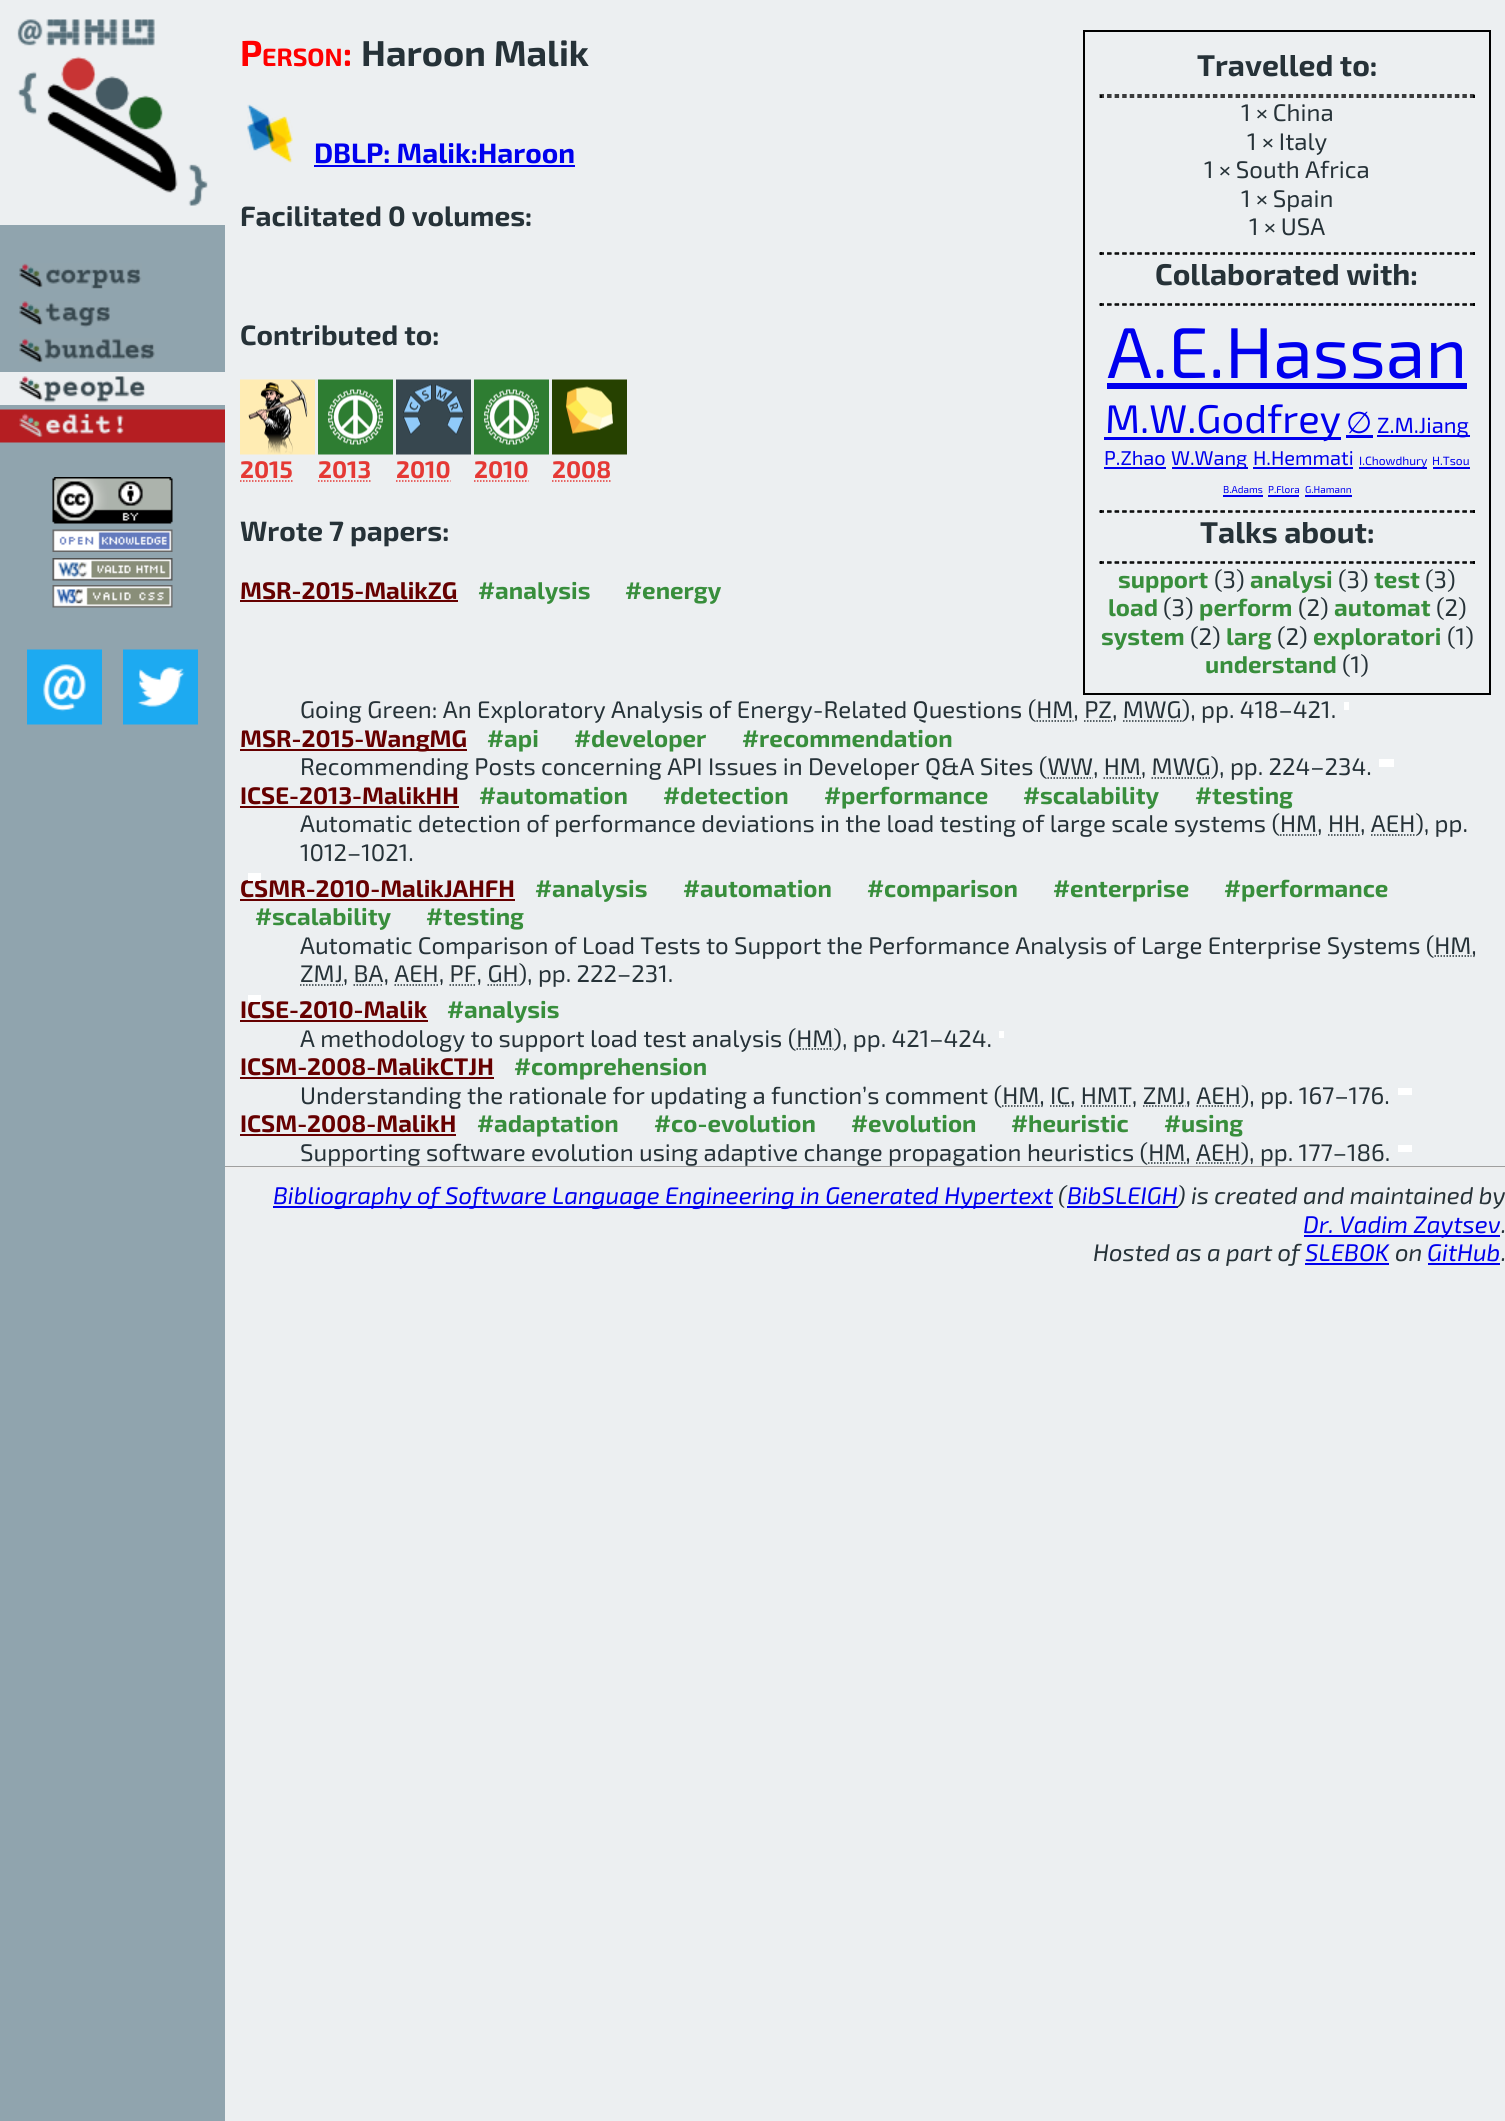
#include <cairo/cairo.h>
#include <math.h>
#include <stddef.h>


static void draw_image(cairo_t *cr, const char *path, double x, double y, double w, double h) {
  cairo_surface_t *image = cairo_image_surface_create_from_png(path);
  cairo_save(cr);
  cairo_set_source_surface(cr, image, x, y);
  cairo_rectangle(cr, x, y, w, h);
  cairo_fill(cr);
  cairo_restore(cr);
  cairo_surface_destroy(image);
}

static void draw(cairo_t *cr) {
  cairo_set_source_rgb(cr, 236 / 255.0, 239 / 255.0, 241 / 255.0);
  cairo_paint(cr);
  cairo_set_source_rgb(cr, 144 / 255.0, 164 / 255.0, 174 / 255.0);
  cairo_rectangle(cr, 0, 225, 225, 1896);
  cairo_fill(cr);
  draw_image(cr, "images/1.png", 0, 0, 225, 225);
  draw_image(cr, "images/2.png", 19, 263, 123, 26);
  draw_image(cr, "images/3.png", 19, 301, 91, 27);
  draw_image(cr, "images/4.png", 19, 338, 136, 25);
  draw_image(cr, "images/5.png", 0, 372, 225, 33);
  draw_image(cr, "images/6.png", 0, 409, 225, 34);
  draw_image(cr, "images/7.png", 52, 477, 121, 47);
  draw_image(cr, "images/8.png", 52, 529, 121, 23);
  draw_image(cr, "images/9.png", 52, 558, 121, 23);
  draw_image(cr, "images/10.png", 52, 585, 121, 23);
  draw_image(cr, "images/11.png", 27, 649, 75, 76);
  draw_image(cr, "images/12.png", 123, 649, 75, 76);
  cairo_rectangle(cr, 1084, 31, 406, 663);
  cairo_set_source_rgb(cr, 0, 0, 0);
  cairo_stroke(cr);
  cairo_new_path(cr);
  cairo_move_to(cr, 1099.5, 95);
  cairo_line_to(cr, 1474.5, 95);
  cairo_set_line_width(cr, 1.5);
  cairo_set_dash(cr, (double[]){4.5, 3.06}, 2, 0);
  cairo_stroke(cr);
  cairo_rectangle(cr, 1473, 95, 2, 3);
  cairo_fill(cr);
  cairo_new_path(cr);
  cairo_move_to(cr, 1099.5, 97);
  cairo_line_to(cr, 1474.5, 97);
  cairo_stroke(cr);
  cairo_rectangle(cr, 1100, 95, 2, 3);
  cairo_fill(cr);
  cairo_new_path(cr);
  cairo_move_to(cr, 1099.5, 253);
  cairo_line_to(cr, 1474.5, 253);
  cairo_stroke(cr);
  cairo_rectangle(cr, 1473, 252, 2, 3);
  cairo_fill(cr);
  cairo_new_path(cr);
  cairo_move_to(cr, 1099.5, 254);
  cairo_line_to(cr, 1474.5, 254);
  cairo_stroke(cr);
  cairo_rectangle(cr, 1100, 252, 2, 3);
  cairo_fill(cr);
  cairo_new_path(cr);
  cairo_move_to(cr, 1099.5, 304);
  cairo_line_to(cr, 1474.5, 304);
  cairo_stroke(cr);
  cairo_rectangle(cr, 1473, 303, 2, 3);
  cairo_fill(cr);
  cairo_new_path(cr);
  cairo_move_to(cr, 1099.5, 305);
  cairo_line_to(cr, 1474.5, 305);
  cairo_stroke(cr);
  cairo_rectangle(cr, 1100, 303, 2, 3);
  cairo_fill(cr);
  cairo_set_source_rgb(cr, 0, 0, 238 / 255.0);
  cairo_rectangle(cr, 1107, 383, 360, 6);
  cairo_fill(cr);
  cairo_rectangle(cr, 1104, 437, 237, 3);
  cairo_fill(cr);
  cairo_rectangle(cr, 1346, 435, 27, 3);
  cairo_fill(cr);
  cairo_rectangle(cr, 1377, 435, 93, 2);
  cairo_fill(cr);
  cairo_rectangle(cr, 1104, 467, 62, 2);
  cairo_fill(cr);
  cairo_rectangle(cr, 1172, 467, 76, 2);
  cairo_fill(cr);
  cairo_rectangle(cr, 1253, 467, 100, 2);
  cairo_fill(cr);
  cairo_rectangle(cr, 1359, 467, 68, 2);
  cairo_fill(cr);
  cairo_rectangle(cr, 1433, 467, 37, 2);
  cairo_fill(cr);
  cairo_rectangle(cr, 1223, 495, 40, 2);
  cairo_fill(cr);
  cairo_rectangle(cr, 1268, 495, 31, 2);
  cairo_fill(cr);
  cairo_rectangle(cr, 1305, 495, 47, 2);
  cairo_fill(cr);
  cairo_new_path(cr);
  cairo_move_to(cr, 1099.5, 511);
  cairo_line_to(cr, 1474.5, 511);
  cairo_set_source_rgb(cr, 0, 0, 0);
  cairo_stroke(cr);
  cairo_rectangle(cr, 1473, 510, 2, 3);
  cairo_fill(cr);
  cairo_new_path(cr);
  cairo_move_to(cr, 1099.5, 512);
  cairo_line_to(cr, 1474.5, 512);
  cairo_stroke(cr);
  cairo_rectangle(cr, 1100, 510, 2, 3);
  cairo_fill(cr);
  cairo_new_path(cr);
  cairo_move_to(cr, 1099.5, 562);
  cairo_line_to(cr, 1474.5, 562);
  cairo_stroke(cr);
  cairo_rectangle(cr, 1473, 561, 2, 3);
  cairo_fill(cr);
  cairo_new_path(cr);
  cairo_move_to(cr, 1099.5, 563);
  cairo_line_to(cr, 1474.5, 563);
  cairo_stroke(cr);
  cairo_rectangle(cr, 1100, 561, 2, 3);
  cairo_fill(cr);
  draw_image(cr, "images/13.png", 247, 104, 46, 59);
  cairo_set_source_rgb(cr, 0, 0, 238 / 255.0);
  cairo_rectangle(cr, 314, 165, 261, 2);
  cairo_fill(cr);
  draw_image(cr, "images/14.png", 240, 379, 75, 76);
  cairo_new_path(cr);
  cairo_move_to(cr, 240, 481);
  cairo_line_to(cr, 292.5, 481);
  cairo_set_source_rgb(cr, 229 / 255.0, 57 / 255.0, 53 / 255.0);
  cairo_set_dash(cr, (double[]){1.5, 1.5}, 2, 0);
  cairo_stroke(cr);
  draw_image(cr, "images/15.png", 318, 379, 75, 76);
  cairo_new_path(cr);
  cairo_move_to(cr, 318, 481);
  cairo_line_to(cr, 371, 481);
  cairo_stroke(cr);
  draw_image(cr, "images/16.png", 396, 379, 75, 76);
  cairo_new_path(cr);
  cairo_move_to(cr, 396, 481);
  cairo_line_to(cr, 450.5, 481);
  cairo_stroke(cr);
  draw_image(cr, "images/15.png", 474, 379, 75, 76);
  cairo_new_path(cr);
  cairo_move_to(cr, 474, 481);
  cairo_line_to(cr, 528.5, 481);
  cairo_stroke(cr);
  draw_image(cr, "images/17.png", 552, 379, 75, 76);
  cairo_new_path(cr);
  cairo_move_to(cr, 552, 481);
  cairo_line_to(cr, 611, 481);
  cairo_stroke(cr);
  cairo_set_source_rgb(cr, 102 / 255.0, 0, 0);
  cairo_rectangle(cr, 240, 600, 218, 2);
  cairo_fill(cr);
  cairo_new_path(cr);
  cairo_move_to(cr, 1036.5, 721);
  cairo_line_to(cr, 1073.5, 721);
  cairo_set_source_rgb(cr, 38 / 255.0, 50 / 255.0, 56 / 255.0);
  cairo_stroke(cr);
  cairo_new_path(cr);
  cairo_move_to(cr, 1084, 721);
  cairo_line_to(cr, 1112, 721);
  cairo_stroke(cr);
  cairo_new_path(cr);
  cairo_move_to(cr, 1123, 721);
  cairo_line_to(cr, 1181.5, 721);
  cairo_stroke(cr);
  cairo_set_source_rgb(cr, 1, 1, 1);
  cairo_rectangle(cr, 1344, 702, 5, 8);
  cairo_fill(cr);
  cairo_set_source_rgb(cr, 102 / 255.0, 0, 0);
  cairo_rectangle(cr, 240, 749, 227, 2);
  cairo_fill(cr);
  cairo_new_path(cr);
  cairo_move_to(cr, 1047.5, 778);
  cairo_line_to(cr, 1093, 778);
  cairo_set_source_rgb(cr, 38 / 255.0, 50 / 255.0, 56 / 255.0);
  cairo_stroke(cr);
  cairo_new_path(cr);
  cairo_move_to(cr, 1103.5, 778);
  cairo_line_to(cr, 1141, 778);
  cairo_stroke(cr);
  cairo_new_path(cr);
  cairo_move_to(cr, 1151.5, 778);
  cairo_line_to(cr, 1210.5, 778);
  cairo_stroke(cr);
  cairo_set_source_rgb(cr, 1, 1, 1);
  cairo_rectangle(cr, 1379, 759, 15, 8);
  cairo_fill(cr);
  cairo_set_source_rgb(cr, 102 / 255.0, 0, 0);
  cairo_rectangle(cr, 240, 806, 219, 2);
  cairo_fill(cr);
  cairo_new_path(cr);
  cairo_move_to(cr, 1280, 835);
  cairo_line_to(cr, 1317, 835);
  cairo_set_source_rgb(cr, 38 / 255.0, 50 / 255.0, 56 / 255.0);
  cairo_stroke(cr);
  cairo_new_path(cr);
  cairo_move_to(cr, 1328, 835);
  cairo_line_to(cr, 1360, 835);
  cairo_stroke(cr);
  cairo_new_path(cr);
  cairo_move_to(cr, 1371, 835);
  cairo_line_to(cr, 1415.5, 835);
  cairo_stroke(cr);
  cairo_set_source_rgb(cr, 102 / 255.0, 0, 0);
  cairo_rectangle(cr, 240, 899, 275, 2);
  cairo_fill(cr);
  cairo_new_path(cr);
  cairo_move_to(cr, 1434.5, 956);
  cairo_line_to(cr, 1471.5, 956);
  cairo_set_source_rgb(cr, 38 / 255.0, 50 / 255.0, 56 / 255.0);
  cairo_stroke(cr);
  cairo_new_path(cr);
  cairo_move_to(cr, 300, 985);
  cairo_line_to(cr, 343, 985);
  cairo_stroke(cr);
  cairo_new_path(cr);
  cairo_move_to(cr, 353.5, 985);
  cairo_line_to(cr, 383.5, 985);
  cairo_stroke(cr);
  cairo_new_path(cr);
  cairo_move_to(cr, 394.5, 985);
  cairo_line_to(cr, 438.5, 985);
  cairo_stroke(cr);
  cairo_new_path(cr);
  cairo_move_to(cr, 449.5, 985);
  cairo_line_to(cr, 476.5, 985);
  cairo_stroke(cr);
  cairo_new_path(cr);
  cairo_move_to(cr, 487.5, 985);
  cairo_line_to(cr, 518.5, 985);
  cairo_stroke(cr);
  cairo_set_source_rgb(cr, 102 / 255.0, 0, 0);
  cairo_rectangle(cr, 240, 1020, 188, 2);
  cairo_fill(cr);
  cairo_new_path(cr);
  cairo_move_to(cr, 796.5, 1049);
  cairo_line_to(cr, 833.5, 1049);
  cairo_set_source_rgb(cr, 38 / 255.0, 50 / 255.0, 56 / 255.0);
  cairo_stroke(cr);
  cairo_set_source_rgb(cr, 1, 1, 1);
  cairo_rectangle(cr, 999, 1031, 5, 7);
  cairo_fill(cr);
  cairo_set_source_rgb(cr, 102 / 255.0, 0, 0);
  cairo_rectangle(cr, 240, 1077, 254, 2);
  cairo_fill(cr);
  cairo_new_path(cr);
  cairo_move_to(cr, 1002, 1106);
  cairo_line_to(cr, 1039.5, 1106);
  cairo_set_source_rgb(cr, 38 / 255.0, 50 / 255.0, 56 / 255.0);
  cairo_stroke(cr);
  cairo_new_path(cr);
  cairo_move_to(cr, 1050, 1106);
  cairo_line_to(cr, 1070, 1106);
  cairo_stroke(cr);
  cairo_new_path(cr);
  cairo_move_to(cr, 1081, 1106);
  cairo_line_to(cr, 1132, 1106);
  cairo_stroke(cr);
  cairo_new_path(cr);
  cairo_move_to(cr, 1143, 1106);
  cairo_line_to(cr, 1185.5, 1106);
  cairo_stroke(cr);
  cairo_new_path(cr);
  cairo_move_to(cr, 1196.5, 1106);
  cairo_line_to(cr, 1241, 1106);
  cairo_stroke(cr);
  cairo_set_source_rgb(cr, 1, 1, 1);
  cairo_rectangle(cr, 1398, 1088, 14, 7);
  cairo_fill(cr);
  cairo_set_source_rgb(cr, 102 / 255.0, 0, 0);
  cairo_rectangle(cr, 240, 1134, 216, 2);
  cairo_fill(cr);
  cairo_new_path(cr);
  cairo_move_to(cr, 1148, 1163);
  cairo_line_to(cr, 1185.5, 1163);
  cairo_set_source_rgb(cr, 38 / 255.0, 50 / 255.0, 56 / 255.0);
  cairo_stroke(cr);
  cairo_new_path(cr);
  cairo_move_to(cr, 1196, 1163);
  cairo_line_to(cr, 1240.5, 1163);
  cairo_stroke(cr);
  cairo_set_source_rgb(cr, 1, 1, 1);
  cairo_rectangle(cr, 1398, 1145, 14, 7);
  cairo_fill(cr);
  cairo_set_source_rgb(cr, 159 / 255.0, 159 / 255.0, 159 / 255.0);
  cairo_rectangle(cr, 225, 1166, 1280, 1);
  cairo_fill(cr);
  cairo_set_source_rgb(cr, 238 / 255.0, 238 / 255.0, 238 / 255.0);
  cairo_rectangle(cr, 225, 1167, 1280, 2);
  cairo_fill(cr);
  cairo_set_source_rgb(cr, 0, 0, 238 / 255.0);
  cairo_rectangle(cr, 273, 1206, 780, 2);
  cairo_fill(cr);
  cairo_rectangle(cr, 1304, 1235, 196, 2);
  cairo_fill(cr);
  cairo_rectangle(cr, 1305, 1263, 84, 2);
  cairo_fill(cr);
  cairo_rectangle(cr, 1428, 1263, 72, 2);
  cairo_fill(cr);
  cairo_select_font_face(cr, "Exo 2", CAIRO_FONT_SLANT_NORMAL, CAIRO_FONT_WEIGHT_BOLD);
  cairo_set_font_size(cr, 36);
  cairo_set_source_rgb(cr, 1, 0, 0);
  cairo_move_to(cr, 240, 66);
  cairo_show_text(cr, "P");
  cairo_set_font_size(cr, 25);
  cairo_move_to(cr, 262, 66);
  cairo_show_text(cr, "ERSON");
  cairo_set_font_size(cr, 36);
  cairo_move_to(cr, 343, 66);
  cairo_show_text(cr, ":");
  cairo_set_source_rgb(cr, 38 / 255.0, 50 / 255.0, 56 / 255.0);
  cairo_move_to(cr, 361, 66);
  cairo_show_text(cr, "Haroon Malik");
  cairo_set_font_size(cr, 30);
  cairo_move_to(cr, 1197, 76);
  cairo_show_text(cr, "Travelled to:");
  cairo_select_font_face(cr, "Exo 2", CAIRO_FONT_SLANT_NORMAL, CAIRO_FONT_WEIGHT_NORMAL);
  cairo_set_font_size(cr, 24);
  cairo_move_to(cr, 1241, 121);
  cairo_show_text(cr, "1 × China");
  cairo_move_to(cr, 1247, 150);
  cairo_show_text(cr, "1 × Italy");
  cairo_move_to(cr, 1204, 178);
  cairo_show_text(cr, "1 × South Africa");
  cairo_move_to(cr, 1241, 207);
  cairo_show_text(cr, "1 × Spain");
  cairo_move_to(cr, 1249, 235);
  cairo_show_text(cr, "1 × USA");
  cairo_select_font_face(cr, "Exo 2", CAIRO_FONT_SLANT_NORMAL, CAIRO_FONT_WEIGHT_BOLD);
  cairo_set_font_size(cr, 30);
  cairo_move_to(cr, 1155, 285);
  cairo_show_text(cr, "Collaborated with:");
  cairo_select_font_face(cr, "Exo 2", CAIRO_FONT_SLANT_NORMAL, CAIRO_FONT_WEIGHT_NORMAL);
  cairo_set_font_size(cr, 72);
  cairo_set_source_rgb(cr, 0, 0, 238 / 255.0);
  cairo_move_to(cr, 1107, 378);
  cairo_show_text(cr, "A.E.Hassan");
  cairo_set_font_size(cr, 40);
  cairo_move_to(cr, 1105, 433);
  cairo_show_text(cr, "M.W.Godfrey");
  cairo_select_font_face(cr, "DejaVu Sans", CAIRO_FONT_SLANT_NORMAL, CAIRO_FONT_WEIGHT_NORMAL);
  cairo_set_font_size(cr, 30);
  cairo_move_to(cr, 1346, 433);
  cairo_show_text(cr, "∅");
  cairo_select_font_face(cr, "Exo 2", CAIRO_FONT_SLANT_NORMAL, CAIRO_FONT_WEIGHT_NORMAL);
  cairo_set_font_size(cr, 22);
  cairo_move_to(cr, 1377, 433);
  cairo_show_text(cr, "Z.M.Jiang");
  cairo_set_font_size(cr, 20);
  cairo_move_to(cr, 1104, 465);
  cairo_show_text(cr, "P.Zhao");
  cairo_move_to(cr, 1171, 465);
  cairo_show_text(cr, "W.Wang");
  cairo_move_to(cr, 1253, 465);
  cairo_show_text(cr, "H.Hemmati");
  cairo_set_font_size(cr, 12);
  cairo_move_to(cr, 1359, 465);
  cairo_show_text(cr, "I.Chowdhury");
  cairo_move_to(cr, 1432, 465);
  cairo_show_text(cr, "H.Tsou");
  cairo_set_font_size(cr, 10);
  cairo_move_to(cr, 1223, 493);
  cairo_show_text(cr, "B.Adams");
  cairo_move_to(cr, 1268, 493);
  cairo_show_text(cr, "P.Flora");
  cairo_move_to(cr, 1305, 493);
  cairo_show_text(cr, "G.Hamann");
  cairo_select_font_face(cr, "Exo 2", CAIRO_FONT_SLANT_NORMAL, CAIRO_FONT_WEIGHT_BOLD);
  cairo_set_font_size(cr, 30);
  cairo_set_source_rgb(cr, 38 / 255.0, 50 / 255.0, 56 / 255.0);
  cairo_move_to(cr, 1200, 543);
  cairo_show_text(cr, "Talks about:");
  cairo_set_font_size(cr, 24);
  cairo_set_source_rgb(cr, 56 / 255.0, 142 / 255.0, 60 / 255.0);
  cairo_move_to(cr, 1118, 588);
  cairo_show_text(cr, "support");
  cairo_select_font_face(cr, "Exo 2", CAIRO_FONT_SLANT_NORMAL, CAIRO_FONT_WEIGHT_NORMAL);
  cairo_set_source_rgb(cr, 38 / 255.0, 50 / 255.0, 56 / 255.0);
  cairo_move_to(cr, 1214, 588);
  cairo_show_text(cr, "(3)");
  cairo_select_font_face(cr, "Exo 2", CAIRO_FONT_SLANT_NORMAL, CAIRO_FONT_WEIGHT_BOLD);
  cairo_set_source_rgb(cr, 56 / 255.0, 142 / 255.0, 60 / 255.0);
  cairo_move_to(cr, 1250, 588);
  cairo_show_text(cr, "analysi");
  cairo_select_font_face(cr, "Exo 2", CAIRO_FONT_SLANT_NORMAL, CAIRO_FONT_WEIGHT_NORMAL);
  cairo_set_source_rgb(cr, 38 / 255.0, 50 / 255.0, 56 / 255.0);
  cairo_move_to(cr, 1338, 588);
  cairo_show_text(cr, "(3)");
  cairo_select_font_face(cr, "Exo 2", CAIRO_FONT_SLANT_NORMAL, CAIRO_FONT_WEIGHT_BOLD);
  cairo_set_source_rgb(cr, 56 / 255.0, 142 / 255.0, 60 / 255.0);
  cairo_move_to(cr, 1374, 588);
  cairo_show_text(cr, "test");
  cairo_select_font_face(cr, "Exo 2", CAIRO_FONT_SLANT_NORMAL, CAIRO_FONT_WEIGHT_NORMAL);
  cairo_set_source_rgb(cr, 38 / 255.0, 50 / 255.0, 56 / 255.0);
  cairo_move_to(cr, 1425, 588);
  cairo_show_text(cr, "(3)");
  cairo_select_font_face(cr, "Exo 2", CAIRO_FONT_SLANT_NORMAL, CAIRO_FONT_WEIGHT_BOLD);
  cairo_set_source_rgb(cr, 56 / 255.0, 142 / 255.0, 60 / 255.0);
  cairo_move_to(cr, 1108, 616);
  cairo_show_text(cr, "load");
  cairo_select_font_face(cr, "Exo 2", CAIRO_FONT_SLANT_NORMAL, CAIRO_FONT_WEIGHT_NORMAL);
  cairo_set_source_rgb(cr, 38 / 255.0, 50 / 255.0, 56 / 255.0);
  cairo_move_to(cr, 1163, 616);
  cairo_show_text(cr, "(3)");
  cairo_select_font_face(cr, "Exo 2", CAIRO_FONT_SLANT_NORMAL, CAIRO_FONT_WEIGHT_BOLD);
  cairo_set_source_rgb(cr, 56 / 255.0, 142 / 255.0, 60 / 255.0);
  cairo_move_to(cr, 1199, 616);
  cairo_show_text(cr, "perform");
  cairo_select_font_face(cr, "Exo 2", CAIRO_FONT_SLANT_NORMAL, CAIRO_FONT_WEIGHT_NORMAL);
  cairo_set_source_rgb(cr, 38 / 255.0, 50 / 255.0, 56 / 255.0);
  cairo_move_to(cr, 1298, 616);
  cairo_show_text(cr, "(2)");
  cairo_select_font_face(cr, "Exo 2", CAIRO_FONT_SLANT_NORMAL, CAIRO_FONT_WEIGHT_BOLD);
  cairo_set_source_rgb(cr, 56 / 255.0, 142 / 255.0, 60 / 255.0);
  cairo_move_to(cr, 1334, 616);
  cairo_show_text(cr, "automat");
  cairo_select_font_face(cr, "Exo 2", CAIRO_FONT_SLANT_NORMAL, CAIRO_FONT_WEIGHT_NORMAL);
  cairo_set_source_rgb(cr, 38 / 255.0, 50 / 255.0, 56 / 255.0);
  cairo_move_to(cr, 1436, 616);
  cairo_show_text(cr, "(2)");
  cairo_select_font_face(cr, "Exo 2", CAIRO_FONT_SLANT_NORMAL, CAIRO_FONT_WEIGHT_BOLD);
  cairo_set_source_rgb(cr, 56 / 255.0, 142 / 255.0, 60 / 255.0);
  cairo_move_to(cr, 1101, 645);
  cairo_show_text(cr, "system");
  cairo_select_font_face(cr, "Exo 2", CAIRO_FONT_SLANT_NORMAL, CAIRO_FONT_WEIGHT_NORMAL);
  cairo_set_source_rgb(cr, 38 / 255.0, 50 / 255.0, 56 / 255.0);
  cairo_move_to(cr, 1190, 645);
  cairo_show_text(cr, "(2)");
  cairo_select_font_face(cr, "Exo 2", CAIRO_FONT_SLANT_NORMAL, CAIRO_FONT_WEIGHT_BOLD);
  cairo_set_source_rgb(cr, 56 / 255.0, 142 / 255.0, 60 / 255.0);
  cairo_move_to(cr, 1226, 645);
  cairo_show_text(cr, "larg");
  cairo_select_font_face(cr, "Exo 2", CAIRO_FONT_SLANT_NORMAL, CAIRO_FONT_WEIGHT_NORMAL);
  cairo_set_source_rgb(cr, 38 / 255.0, 50 / 255.0, 56 / 255.0);
  cairo_move_to(cr, 1277, 645);
  cairo_show_text(cr, "(2)");
  cairo_select_font_face(cr, "Exo 2", CAIRO_FONT_SLANT_NORMAL, CAIRO_FONT_WEIGHT_BOLD);
  cairo_set_source_rgb(cr, 56 / 255.0, 142 / 255.0, 60 / 255.0);
  cairo_move_to(cr, 1313, 645);
  cairo_show_text(cr, "exploratori");
  cairo_select_font_face(cr, "Exo 2", CAIRO_FONT_SLANT_NORMAL, CAIRO_FONT_WEIGHT_NORMAL);
  cairo_set_source_rgb(cr, 38 / 255.0, 50 / 255.0, 56 / 255.0);
  cairo_move_to(cr, 1447, 645);
  cairo_show_text(cr, "(1)");
  cairo_select_font_face(cr, "Exo 2", CAIRO_FONT_SLANT_NORMAL, CAIRO_FONT_WEIGHT_BOLD);
  cairo_set_source_rgb(cr, 56 / 255.0, 142 / 255.0, 60 / 255.0);
  cairo_move_to(cr, 1205, 673);
  cairo_show_text(cr, "understand");
  cairo_select_font_face(cr, "Exo 2", CAIRO_FONT_SLANT_NORMAL, CAIRO_FONT_WEIGHT_NORMAL);
  cairo_set_source_rgb(cr, 38 / 255.0, 50 / 255.0, 56 / 255.0);
  cairo_move_to(cr, 1342, 673);
  cairo_show_text(cr, "(1)");
  cairo_select_font_face(cr, "Exo 2", CAIRO_FONT_SLANT_NORMAL, CAIRO_FONT_WEIGHT_BOLD);
  cairo_set_font_size(cr, 28);
  cairo_set_source_rgb(cr, 0, 0, 238 / 255.0);
  cairo_move_to(cr, 314, 163);
  cairo_show_text(cr, "DBLP: Malik:Haroon");
  cairo_set_source_rgb(cr, 38 / 255.0, 50 / 255.0, 56 / 255.0);
  cairo_move_to(cr, 240, 226);
  cairo_show_text(cr, "Facilitated 0 volumes:");
  cairo_move_to(cr, 240, 345);
  cairo_show_text(cr, "Contributed to:");
  cairo_set_font_size(cr, 24);
  cairo_set_source_rgb(cr, 229 / 255.0, 57 / 255.0, 53 / 255.0);
  cairo_move_to(cr, 240, 478);
  cairo_show_text(cr, "2015");
  cairo_move_to(cr, 318, 478);
  cairo_show_text(cr, "2013");
  cairo_move_to(cr, 396, 478);
  cairo_show_text(cr, "2010");
  cairo_move_to(cr, 474, 478);
  cairo_show_text(cr, "2010");
  cairo_move_to(cr, 552, 478);
  cairo_show_text(cr, "2008");
  cairo_set_font_size(cr, 28);
  cairo_set_source_rgb(cr, 38 / 255.0, 50 / 255.0, 56 / 255.0);
  cairo_move_to(cr, 240, 541);
  cairo_show_text(cr, "Wrote 7 papers:");
  cairo_set_font_size(cr, 24);
  cairo_set_source_rgb(cr, 102 / 255.0, 0, 0);
  cairo_move_to(cr, 240, 599);
  cairo_show_text(cr, "MSR-2015-MalikZG");
  cairo_set_source_rgb(cr, 56 / 255.0, 142 / 255.0, 60 / 255.0);
  cairo_move_to(cr, 478, 599);
  cairo_show_text(cr, "#analysis");
  cairo_move_to(cr, 625, 599);
  cairo_show_text(cr, "#energy");
  cairo_select_font_face(cr, "Exo 2", CAIRO_FONT_SLANT_NORMAL, CAIRO_FONT_WEIGHT_NORMAL);
  cairo_set_source_rgb(cr, 38 / 255.0, 50 / 255.0, 56 / 255.0);
  cairo_move_to(cr, 300, 718);
  cairo_show_text(cr, "Going Green: An Exploratory Analysis of Energy-Related Questions (HM, PZ, MWG), pp. 418–421.");
  cairo_select_font_face(cr, "Exo 2", CAIRO_FONT_SLANT_NORMAL, CAIRO_FONT_WEIGHT_BOLD);
  cairo_set_source_rgb(cr, 102 / 255.0, 0, 0);
  cairo_move_to(cr, 240, 747);
  cairo_show_text(cr, "MSR-2015-WangMG");
  cairo_set_source_rgb(cr, 56 / 255.0, 142 / 255.0, 60 / 255.0);
  cairo_move_to(cr, 487, 747);
  cairo_show_text(cr, "#api");
  cairo_move_to(cr, 574, 747);
  cairo_show_text(cr, "#developer");
  cairo_move_to(cr, 742, 747);
  cairo_show_text(cr, "#recommendation");
  cairo_select_font_face(cr, "Exo 2", CAIRO_FONT_SLANT_NORMAL, CAIRO_FONT_WEIGHT_NORMAL);
  cairo_set_source_rgb(cr, 38 / 255.0, 50 / 255.0, 56 / 255.0);
  cairo_move_to(cr, 300, 775);
  cairo_show_text(cr, "Recommending Posts concerning API Issues in Developer Q&A Sites (WW, HM, MWG), pp. 224–234.");
  cairo_select_font_face(cr, "Exo 2", CAIRO_FONT_SLANT_NORMAL, CAIRO_FONT_WEIGHT_BOLD);
  cairo_set_source_rgb(cr, 102 / 255.0, 0, 0);
  cairo_move_to(cr, 240, 804);
  cairo_show_text(cr, "ICSE-2013-MalikHH");
  cairo_set_source_rgb(cr, 56 / 255.0, 142 / 255.0, 60 / 255.0);
  cairo_move_to(cr, 479, 804);
  cairo_show_text(cr, "#automation");
  cairo_move_to(cr, 663, 804);
  cairo_show_text(cr, "#detection");
  cairo_move_to(cr, 824, 804);
  cairo_show_text(cr, "#performance");
  cairo_move_to(cr, 1023, 804);
  cairo_show_text(cr, "#scalability");
  cairo_move_to(cr, 1195, 804);
  cairo_show_text(cr, "#testing");
  cairo_select_font_face(cr, "Exo 2", CAIRO_FONT_SLANT_NORMAL, CAIRO_FONT_WEIGHT_NORMAL);
  cairo_set_source_rgb(cr, 38 / 255.0, 50 / 255.0, 56 / 255.0);
  cairo_move_to(cr, 300, 832);
  cairo_show_text(cr, "Automatic detection of performance deviations in the load testing of large scale systems (HM, HH, AEH), pp.");
  cairo_move_to(cr, 300, 861);
  cairo_show_text(cr, "1012–1021.");
  cairo_select_font_face(cr, "Exo 2", CAIRO_FONT_SLANT_NORMAL, CAIRO_FONT_WEIGHT_BOLD);
  cairo_set_source_rgb(cr, 102 / 255.0, 0, 0);
  cairo_move_to(cr, 240, 897);
  cairo_show_text(cr, "CSMR-2010-MalikJAHFH");
  cairo_set_source_rgb(cr, 1, 1, 1);
  cairo_rectangle(cr, 248, 873, 13, 8);
  cairo_fill(cr);
  cairo_set_source_rgb(cr, 56 / 255.0, 142 / 255.0, 60 / 255.0);
  cairo_move_to(cr, 535, 897);
  cairo_show_text(cr, "#analysis");
  cairo_move_to(cr, 683, 897);
  cairo_show_text(cr, "#automation");
  cairo_move_to(cr, 867, 897);
  cairo_show_text(cr, "#comparison");
  cairo_move_to(cr, 1053, 897);
  cairo_show_text(cr, "#enterprise");
  cairo_move_to(cr, 1224, 897);
  cairo_show_text(cr, "#performance");
  cairo_move_to(cr, 255, 925);
  cairo_show_text(cr, "#scalability");
  cairo_move_to(cr, 426, 925);
  cairo_show_text(cr, "#testing");
  cairo_select_font_face(cr, "Exo 2", CAIRO_FONT_SLANT_NORMAL, CAIRO_FONT_WEIGHT_NORMAL);
  cairo_set_source_rgb(cr, 38 / 255.0, 50 / 255.0, 56 / 255.0);
  cairo_move_to(cr, 300, 954);
  cairo_show_text(cr, "Automatic Comparison of Load Tests to Support the Performance Analysis of Large Enterprise Systems (HM,");
  cairo_move_to(cr, 300, 982);
  cairo_show_text(cr, "ZMJ, BA, AEH, PF, GH), pp. 222–231.");
  cairo_select_font_face(cr, "Exo 2", CAIRO_FONT_SLANT_NORMAL, CAIRO_FONT_WEIGHT_BOLD);
  cairo_set_source_rgb(cr, 102 / 255.0, 0, 0);
  cairo_move_to(cr, 240, 1018);
  cairo_show_text(cr, "ICSE-2010-Malik");
  cairo_set_source_rgb(cr, 1, 1, 1);
  cairo_rectangle(cr, 248, 995, 13, 7);
  cairo_fill(cr);
  cairo_set_source_rgb(cr, 56 / 255.0, 142 / 255.0, 60 / 255.0);
  cairo_move_to(cr, 447, 1018);
  cairo_show_text(cr, "#analysis");
  cairo_select_font_face(cr, "Exo 2", CAIRO_FONT_SLANT_NORMAL, CAIRO_FONT_WEIGHT_NORMAL);
  cairo_set_source_rgb(cr, 38 / 255.0, 50 / 255.0, 56 / 255.0);
  cairo_move_to(cr, 300, 1047);
  cairo_show_text(cr, "A methodology to support load test analysis (HM), pp. 421–424.");
  cairo_select_font_face(cr, "Exo 2", CAIRO_FONT_SLANT_NORMAL, CAIRO_FONT_WEIGHT_BOLD);
  cairo_set_source_rgb(cr, 102 / 255.0, 0, 0);
  cairo_move_to(cr, 240, 1075);
  cairo_show_text(cr, "ICSM-2008-MalikCTJH");
  cairo_set_source_rgb(cr, 56 / 255.0, 142 / 255.0, 60 / 255.0);
  cairo_move_to(cr, 514, 1075);
  cairo_show_text(cr, "#comprehension");
  cairo_select_font_face(cr, "Exo 2", CAIRO_FONT_SLANT_NORMAL, CAIRO_FONT_WEIGHT_NORMAL);
  cairo_set_source_rgb(cr, 38 / 255.0, 50 / 255.0, 56 / 255.0);
  cairo_move_to(cr, 300, 1104);
  cairo_show_text(cr, "Understanding the rationale for updating a function’s comment (HM, IC, HMT, ZMJ, AEH), pp. 167–176.");
  cairo_select_font_face(cr, "Exo 2", CAIRO_FONT_SLANT_NORMAL, CAIRO_FONT_WEIGHT_BOLD);
  cairo_set_source_rgb(cr, 102 / 255.0, 0, 0);
  cairo_move_to(cr, 240, 1132);
  cairo_show_text(cr, "ICSM-2008-MalikH");
  cairo_set_source_rgb(cr, 56 / 255.0, 142 / 255.0, 60 / 255.0);
  cairo_move_to(cr, 477, 1132);
  cairo_show_text(cr, "#adaptation");
  cairo_move_to(cr, 654, 1132);
  cairo_show_text(cr, "#co-evolution");
  cairo_move_to(cr, 851, 1132);
  cairo_show_text(cr, "#evolution");
  cairo_move_to(cr, 1011, 1132);
  cairo_show_text(cr, "#heuristic");
  cairo_move_to(cr, 1164, 1132);
  cairo_show_text(cr, "#using");
  cairo_select_font_face(cr, "Exo 2", CAIRO_FONT_SLANT_NORMAL, CAIRO_FONT_WEIGHT_NORMAL);
  cairo_set_source_rgb(cr, 38 / 255.0, 50 / 255.0, 56 / 255.0);
  cairo_move_to(cr, 300, 1161);
  cairo_show_text(cr, "Supporting software evolution using adaptive change propagation heuristics (HM, AEH), pp. 177–186.");
  cairo_select_font_face(cr, "Exo 2", CAIRO_FONT_SLANT_ITALIC, CAIRO_FONT_WEIGHT_NORMAL);
  cairo_set_source_rgb(cr, 0, 0, 238 / 255.0);
  cairo_move_to(cr, 273, 1204);
  cairo_show_text(cr, "Bibliography of Software Language Engineering in Generated Hypertext");
  cairo_set_source_rgb(cr, 38 / 255.0, 50 / 255.0, 56 / 255.0);
  cairo_move_to(cr, 1058, 1204);
  cairo_show_text(cr, "(");
  cairo_set_source_rgb(cr, 0, 0, 238 / 255.0);
  cairo_move_to(cr, 1067, 1204);
  cairo_show_text(cr, "BibSLEIGH");
  cairo_rectangle(cr, 1067, 1206, 111, 2);
  cairo_fill(cr);
  cairo_set_source_rgb(cr, 38 / 255.0, 50 / 255.0, 56 / 255.0);
  cairo_move_to(cr, 1177, 1204);
  cairo_show_text(cr, ") is created and maintained by");
  cairo_set_source_rgb(cr, 0, 0, 238 / 255.0);
  cairo_move_to(cr, 1303, 1233);
  cairo_show_text(cr, "Dr. Vadim Zaytsev");
  cairo_set_source_rgb(cr, 38 / 255.0, 50 / 255.0, 56 / 255.0);
  cairo_move_to(cr, 1501, 1233);
  cairo_show_text(cr, ".");
  cairo_move_to(cr, 1093, 1261);
  cairo_show_text(cr, "Hosted as a part of");
  cairo_set_source_rgb(cr, 0, 0, 238 / 255.0);
  cairo_move_to(cr, 1305, 1261);
  cairo_show_text(cr, "SLEBOK");
  cairo_set_source_rgb(cr, 38 / 255.0, 50 / 255.0, 56 / 255.0);
  cairo_move_to(cr, 1395, 1261);
  cairo_show_text(cr, "on");
  cairo_set_source_rgb(cr, 0, 0, 238 / 255.0);
  cairo_move_to(cr, 1427, 1261);
  cairo_show_text(cr, "GitHub");
  cairo_set_source_rgb(cr, 38 / 255.0, 50 / 255.0, 56 / 255.0);
  cairo_move_to(cr, 1501, 1261);
  cairo_show_text(cr, ".");
}

int main(void) {
  cairo_surface_t *surface = cairo_image_surface_create(CAIRO_FORMAT_RGB24, 1505, 2121);
  cairo_t *cr = cairo_create(surface);
  cairo_font_options_t *options = cairo_font_options_create();
  cairo_font_options_set_hint_metrics(options, CAIRO_HINT_METRICS_OFF);
  cairo_font_options_set_hint_style(options, CAIRO_HINT_STYLE_NONE);
  cairo_set_font_options(cr, options);
  cairo_set_miter_limit(cr, 4);
  draw(cr);
  cairo_surface_write_to_png(surface, "out.png");
  cairo_font_options_destroy(options);
  cairo_destroy(cr);
  cairo_surface_destroy(surface);
  return 0;
}
